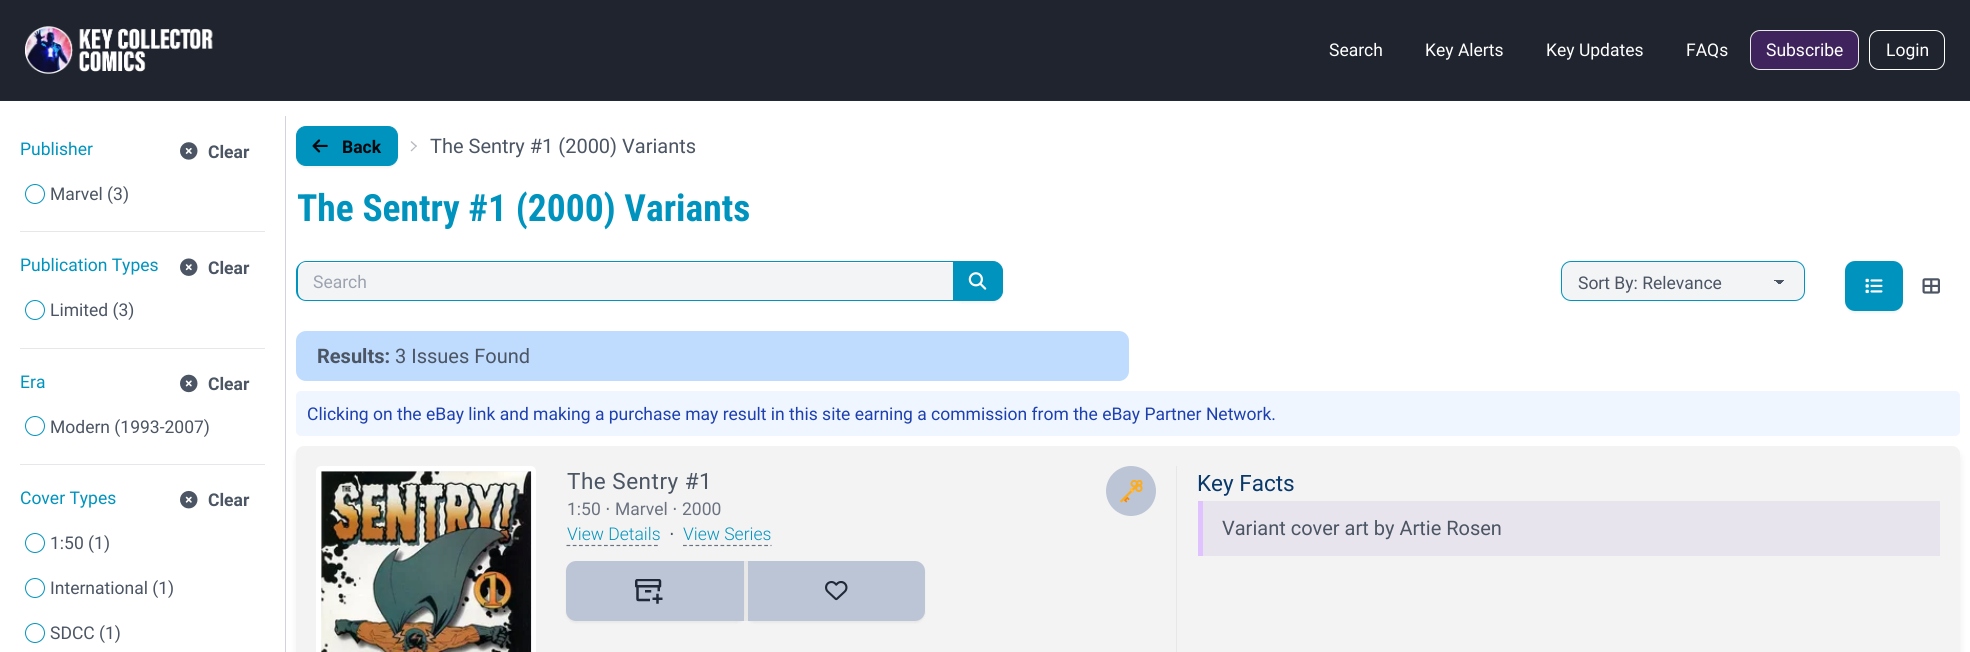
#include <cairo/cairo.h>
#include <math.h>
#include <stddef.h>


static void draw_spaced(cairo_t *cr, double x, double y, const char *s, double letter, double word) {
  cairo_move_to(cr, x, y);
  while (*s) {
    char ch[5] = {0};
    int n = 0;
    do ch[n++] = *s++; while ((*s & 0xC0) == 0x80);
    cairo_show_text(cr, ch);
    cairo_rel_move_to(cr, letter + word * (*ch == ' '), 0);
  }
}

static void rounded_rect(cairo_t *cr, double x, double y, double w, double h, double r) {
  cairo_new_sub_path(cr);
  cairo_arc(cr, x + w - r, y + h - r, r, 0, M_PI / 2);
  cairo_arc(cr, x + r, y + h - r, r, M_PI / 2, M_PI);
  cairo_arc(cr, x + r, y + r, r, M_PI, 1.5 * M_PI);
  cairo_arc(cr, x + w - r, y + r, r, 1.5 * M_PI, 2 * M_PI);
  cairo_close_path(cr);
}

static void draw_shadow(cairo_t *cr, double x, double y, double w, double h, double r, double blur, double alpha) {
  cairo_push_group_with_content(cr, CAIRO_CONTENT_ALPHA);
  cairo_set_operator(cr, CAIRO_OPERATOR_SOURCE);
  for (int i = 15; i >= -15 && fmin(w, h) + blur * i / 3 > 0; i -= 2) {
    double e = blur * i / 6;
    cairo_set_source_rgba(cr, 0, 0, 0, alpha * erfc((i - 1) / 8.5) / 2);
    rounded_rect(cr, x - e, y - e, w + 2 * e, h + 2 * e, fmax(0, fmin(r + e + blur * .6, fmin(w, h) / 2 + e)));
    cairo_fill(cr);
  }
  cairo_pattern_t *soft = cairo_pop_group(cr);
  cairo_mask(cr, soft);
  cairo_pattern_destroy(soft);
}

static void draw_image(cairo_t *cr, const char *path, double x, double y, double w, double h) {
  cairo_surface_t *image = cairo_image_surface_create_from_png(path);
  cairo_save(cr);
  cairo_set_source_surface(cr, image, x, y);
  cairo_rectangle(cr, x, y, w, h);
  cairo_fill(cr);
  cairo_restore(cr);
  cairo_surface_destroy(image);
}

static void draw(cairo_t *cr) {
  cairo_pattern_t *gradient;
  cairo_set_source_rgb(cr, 1, 1, 1);
  cairo_paint(cr);
  cairo_set_source_rgb(cr, 32 / 255.0, 36 / 255.0, 46 / 255.0);
  cairo_rectangle(cr, 0, 0, 1970, 100);
  cairo_fill(cr);
  cairo_set_source_rgb(cr, 31 / 255.0, 41 / 255.0, 55 / 255.0);
  cairo_rectangle(cr, 0, 100, 1970, 1);
  cairo_fill(cr);
  draw_image(cr, "images/1.png", 25, 26, 188, 48);
  cairo_set_source_rgb(cr, 63 / 255.0, 35 / 255.0, 93 / 255.0);
  rounded_rect(cr, 1750.5, 30.5, 108, 39, 9.5);
  cairo_fill_preserve(cr);
  cairo_set_source_rgb(cr, 232 / 255.0, 232 / 255.0, 232 / 255.0);
  cairo_set_line_width(cr, 1);
  cairo_stroke(cr);
  rounded_rect(cr, 1869.5, 30.5, 75, 39, 9.5);
  cairo_set_source_rgb(cr, 1, 1, 1);
  cairo_stroke(cr);
  cairo_set_source_rgb(cr, 209 / 255.0, 213 / 255.0, 219 / 255.0);
  cairo_rectangle(cr, 285, 116, 1, 536);
  cairo_fill(cr);
  cairo_set_source_rgb(cr, 229 / 255.0, 231 / 255.0, 235 / 255.0);
  cairo_rectangle(cr, 20, 231, 245, 1);
  cairo_fill(cr);
  draw_image(cr, "images/2.png", 180, 142, 18, 18);
  cairo_arc(cr, 35, 194, 9.5, 0, 2 * M_PI);
  cairo_set_source_rgb(cr, 0, 147 / 255.0, 190 / 255.0);
  cairo_stroke(cr);
  cairo_set_source_rgb(cr, 229 / 255.0, 231 / 255.0, 235 / 255.0);
  cairo_rectangle(cr, 20, 348, 245, 1);
  cairo_fill(cr);
  draw_image(cr, "images/3.png", 180, 258, 18, 18);
  cairo_arc(cr, 35, 310, 9.5, 0, 2 * M_PI);
  cairo_set_source_rgb(cr, 0, 147 / 255.0, 190 / 255.0);
  cairo_stroke(cr);
  cairo_set_source_rgb(cr, 229 / 255.0, 231 / 255.0, 235 / 255.0);
  cairo_rectangle(cr, 20, 464, 245, 1);
  cairo_fill(cr);
  draw_image(cr, "images/4.png", 180, 374, 18, 19);
  cairo_arc(cr, 35, 426, 9.5, 0, 2 * M_PI);
  cairo_set_source_rgb(cr, 0, 147 / 255.0, 190 / 255.0);
  cairo_stroke(cr);
  draw_image(cr, "images/5.png", 180, 490, 18, 19);
  cairo_arc(cr, 35, 543, 9.5, 0, 2 * M_PI);
  cairo_stroke(cr);
  cairo_arc(cr, 35, 588, 9.5, 0, 2 * M_PI);
  cairo_stroke(cr);
  cairo_arc(cr, 35, 633, 9.5, 0, 2 * M_PI);
  cairo_stroke(cr);
  cairo_set_source_rgb(cr, 0, 0, 0);
  draw_shadow(cr, 296, 128, 102, 40, 10, 1, 0.05);
  cairo_set_source_rgb(cr, 0, 147 / 255.0, 190 / 255.0);
  rounded_rect(cr, 296.5, 126.5, 101, 39, 9.5);
  cairo_fill_preserve(cr);
  cairo_stroke(cr);
  draw_image(cr, "images/6.png", 312, 139, 16, 14);
  cairo_set_source_rgb(cr, 183 / 255.0, 187 / 255.0, 193 / 255.0);
  cairo_new_path(cr);
  cairo_move_to(cr, 411.5, 141);
  cairo_line_to(cr, 417, 146);
  cairo_line_to(cr, 416, 147);
  cairo_line_to(cr, 410.5, 142);
  cairo_close_path(cr);
  cairo_fill(cr);
  cairo_new_path(cr);
  cairo_move_to(cr, 416, 145.5);
  cairo_line_to(cr, 417, 146);
  cairo_line_to(cr, 411.5, 151.5);
  cairo_line_to(cr, 410.5, 150.5);
  cairo_close_path(cr);
  cairo_fill(cr);
  cairo_set_source_rgb(cr, 243 / 255.0, 244 / 255.0, 246 / 255.0);
  cairo_new_path(cr);
  cairo_move_to(cr, 307, 263);
  cairo_line_to(cr, 954, 263);
  cairo_line_to(cr, 954, 300);
  cairo_line_to(cr, 307, 300);
  cairo_curve_to(cr, 302, 300, 298, 296, 298, 291);
  cairo_line_to(cr, 298, 272);
  cairo_curve_to(cr, 298, 267, 302, 263, 307, 263);
  cairo_close_path(cr);
  cairo_fill(cr);
  cairo_set_source_rgb(cr, 0, 147 / 255.0, 190 / 255.0);
  cairo_set_fill_rule(cr, CAIRO_FILL_RULE_EVEN_ODD);
  cairo_new_path(cr);
  cairo_move_to(cr, 306, 261);
  cairo_line_to(cr, 954, 261);
  cairo_line_to(cr, 954, 301);
  cairo_line_to(cr, 306, 301);
  cairo_curve_to(cr, 301, 301, 296, 297, 296, 291);
  cairo_line_to(cr, 296, 271);
  cairo_curve_to(cr, 296, 266, 301, 261, 306, 261);
  cairo_close_path(cr);
  cairo_move_to(cr, 306, 262);
  cairo_line_to(cr, 954, 262);
  cairo_line_to(cr, 954, 300);
  cairo_line_to(cr, 306, 300);
  cairo_curve_to(cr, 301, 300, 298, 296, 298, 291);
  cairo_line_to(cr, 298, 271);
  cairo_curve_to(cr, 298, 266, 301, 262, 306, 262);
  cairo_close_path(cr);
  cairo_fill(cr);
  cairo_set_source_rgb(cr, 0, 0, 0);
  draw_shadow(cr, 953, 263, 50, 40, 10, 1, 0.05);
  cairo_set_source_rgb(cr, 0, 147 / 255.0, 190 / 255.0);
  cairo_new_path(cr);
  cairo_move_to(cr, 953.5, 261.5);
  cairo_line_to(cr, 993, 261.5);
  cairo_curve_to(cr, 998, 261.5, 1002.5, 266, 1002.5, 271);
  cairo_line_to(cr, 1002.5, 291);
  cairo_curve_to(cr, 1002.5, 296, 998, 300.5, 993, 300.5);
  cairo_line_to(cr, 953.5, 300.5);
  cairo_close_path(cr);
  cairo_fill_preserve(cr);
  cairo_stroke(cr);
  draw_image(cr, "images/7.png", 968, 272, 19, 18);
  cairo_set_source_rgb(cr, 243 / 255.0, 244 / 255.0, 246 / 255.0);
  rounded_rect(cr, 1561, 261, 244, 40, 10);
  cairo_fill(cr);
  gradient = cairo_pattern_create_linear(1779, 280, 1784, 285);
  cairo_pattern_add_color_stop_rgba(gradient, 0.5, 75 / 255.0, 85 / 255.0, 99 / 255.0, 1);
  cairo_pattern_add_color_stop_rgba(gradient, 0.5, 243 / 255.0, 244 / 255.0, 246 / 255.0, 1);
  cairo_set_source(cr, gradient);
  cairo_pattern_destroy(gradient);
  cairo_rectangle(cr, 1779, 280, 5, 4);
  cairo_fill(cr);
  gradient = cairo_pattern_create_linear(1774, 285, 1779, 280);
  cairo_pattern_add_color_stop_rgba(gradient, 0.5, 243 / 255.0, 244 / 255.0, 246 / 255.0, 1);
  cairo_pattern_add_color_stop_rgba(gradient, 0.5, 75 / 255.0, 85 / 255.0, 99 / 255.0, 1);
  cairo_set_source(cr, gradient);
  cairo_pattern_destroy(gradient);
  cairo_rectangle(cr, 1774, 280, 5, 4);
  cairo_fill(cr);
  rounded_rect(cr, 1561.5, 261.5, 243, 39, 9.5);
  cairo_set_source_rgb(cr, 0, 147 / 255.0, 190 / 255.0);
  cairo_stroke(cr);
  cairo_set_source_rgb(cr, 0, 0, 0);
  draw_shadow(cr, 1845, 263, 58, 50, 10, 1, 0.05);
  cairo_set_source_rgb(cr, 0, 147 / 255.0, 190 / 255.0);
  rounded_rect(cr, 1845, 261, 58, 50, 10);
  cairo_fill(cr);
  draw_image(cr, "images/8.png", 1865, 278, 18, 16);
  draw_image(cr, "images/9.png", 1922, 278, 18, 16);
  cairo_set_source_rgb(cr, 191 / 255.0, 219 / 255.0, 254 / 255.0);
  rounded_rect(cr, 296, 331, 833, 50, 10);
  cairo_fill(cr);
  cairo_set_source_rgb(cr, 239 / 255.0, 246 / 255.0, 1);
  rounded_rect(cr, 296, 391, 1664, 45, 5);
  cairo_fill(cr);
  cairo_set_source_rgb(cr, 0, 0, 0);
  draw_shadow(cr, 298, 453, 1661, 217, 6, 4, 0.1);
  cairo_set_source_rgb(cr, 243 / 255.0, 243 / 255.0, 243 / 255.0);
  rounded_rect(cr, 296, 446, 1664, 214, 8);
  cairo_fill(cr);
  rounded_rect(cr, 318.5, 468.5, 215, 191, 2.5);
  cairo_set_source_rgb(cr, 1, 1, 1);
  cairo_set_line_width(cr, 5);
  cairo_stroke(cr);
  draw_image(cr, "images/10.png", 321, 471, 211, 181);
  cairo_set_source_rgb(cr, 229 / 255.0, 231 / 255.0, 235 / 255.0);
  cairo_rectangle(cr, 1176, 466, 1, 186);
  cairo_fill(cr);
  cairo_set_source_rgb(cr, 188 / 255.0, 197 / 255.0, 213 / 255.0);
  cairo_arc(cr, 1131, 491, 25, 0, 2 * M_PI);
  cairo_fill(cr);
  draw_image(cr, "images/11.png", 1120, 479, 23, 24);
  cairo_new_path(cr);
  cairo_move_to(cr, 566.5, 545.5);
  cairo_line_to(cr, 660, 545.5);
  cairo_set_source_rgb(cr, 107 / 255.0, 114 / 255.0, 128 / 255.0);
  cairo_set_line_width(cr, 1.2);
  cairo_set_dash(cr, (double[]){3.75, 2.5}, 2, 0);
  cairo_stroke(cr);
  cairo_new_path(cr);
  cairo_move_to(cr, 683, 545.5);
  cairo_line_to(cr, 771.5, 545.5);
  cairo_stroke(cr);
  cairo_set_source_rgb(cr, 0, 0, 0);
  draw_shadow(cr, 566, 563, 180, 60, 10, 1, 0.05);
  cairo_set_source_rgb(cr, 188 / 255.0, 197 / 255.0, 213 / 255.0);
  cairo_new_path(cr);
  cairo_move_to(cr, 576, 561);
  cairo_line_to(cr, 744, 561);
  cairo_line_to(cr, 744, 621);
  cairo_line_to(cr, 576, 621);
  cairo_curve_to(cr, 570.5, 621, 566, 616.5, 566, 611);
  cairo_line_to(cr, 566, 571);
  cairo_curve_to(cr, 566, 565.5, 570.5, 561, 576, 561);
  cairo_close_path(cr);
  cairo_fill(cr);
  cairo_set_source_rgb(cr, 232 / 255.0, 232 / 255.0, 232 / 255.0);
  cairo_rectangle(cr, 744, 561, 1, 60);
  cairo_fill(cr);
  draw_image(cr, "images/12.png", 635, 579, 28, 25);
  cairo_set_source_rgb(cr, 0, 0, 0);
  draw_shadow(cr, 745, 563, 180, 60, 10, 1, 0.05);
  cairo_set_source_rgb(cr, 188 / 255.0, 197 / 255.0, 213 / 255.0);
  cairo_new_path(cr);
  cairo_move_to(cr, 748, 561);
  cairo_line_to(cr, 915, 561);
  cairo_curve_to(cr, 920.5, 561, 925, 565.5, 925, 571);
  cairo_line_to(cr, 925, 611);
  cairo_curve_to(cr, 925, 616.5, 920.5, 621, 915, 621);
  cairo_line_to(cr, 748, 621);
  cairo_close_path(cr);
  cairo_fill(cr);
  cairo_set_source_rgb(cr, 232 / 255.0, 232 / 255.0, 232 / 255.0);
  cairo_rectangle(cr, 745, 561, 3, 60);
  cairo_fill(cr);
  draw_image(cr, "images/13.png", 825, 581, 23, 20);
  cairo_set_source_rgb(cr, 232 / 255.0, 228 / 255.0, 238 / 255.0);
  cairo_rectangle(cr, 1203, 501, 737, 55);
  cairo_fill(cr);
  cairo_set_source_rgb(cr, 224 / 255.0, 194 / 255.0, 1);
  cairo_rectangle(cr, 1198, 501, 5, 55);
  cairo_fill(cr);
  cairo_select_font_face(cr, "Roboto", CAIRO_FONT_SLANT_NORMAL, CAIRO_FONT_WEIGHT_NORMAL);
  cairo_set_font_size(cr, 17.5);
  cairo_set_source_rgb(cr, 1, 1, 1);
  cairo_move_to(cr, 1329, 56);
  cairo_show_text(cr, "Search");
  cairo_move_to(cr, 1425, 56);
  cairo_show_text(cr, "Key Alerts");
  cairo_move_to(cr, 1546, 56);
  cairo_show_text(cr, "Key Updates");
  cairo_move_to(cr, 1686, 56);
  cairo_show_text(cr, "FAQs");
  cairo_move_to(cr, 1766, 56);
  cairo_show_text(cr, "Subscribe");
  cairo_move_to(cr, 1886, 56);
  cairo_show_text(cr, "Login");
  cairo_set_source_rgb(cr, 0, 147 / 255.0, 190 / 255.0);
  cairo_move_to(cr, 20, 155);
  cairo_show_text(cr, "Publisher");
  cairo_select_font_face(cr, "Roboto", CAIRO_FONT_SLANT_NORMAL, CAIRO_FONT_WEIGHT_BOLD);
  cairo_set_source_rgb(cr, 75 / 255.0, 85 / 255.0, 99 / 255.0);
  cairo_move_to(cr, 208, 158);
  cairo_show_text(cr, "Clear");
  cairo_select_font_face(cr, "Roboto", CAIRO_FONT_SLANT_NORMAL, CAIRO_FONT_WEIGHT_NORMAL);
  cairo_move_to(cr, 50, 200);
  cairo_show_text(cr, "Marvel (3)");
  cairo_set_source_rgb(cr, 0, 147 / 255.0, 190 / 255.0);
  cairo_move_to(cr, 20, 271);
  cairo_show_text(cr, "Publication Types");
  cairo_select_font_face(cr, "Roboto", CAIRO_FONT_SLANT_NORMAL, CAIRO_FONT_WEIGHT_BOLD);
  cairo_set_source_rgb(cr, 75 / 255.0, 85 / 255.0, 99 / 255.0);
  cairo_move_to(cr, 208, 274);
  cairo_show_text(cr, "Clear");
  cairo_select_font_face(cr, "Roboto", CAIRO_FONT_SLANT_NORMAL, CAIRO_FONT_WEIGHT_NORMAL);
  cairo_move_to(cr, 50, 316);
  cairo_show_text(cr, "Limited (3)");
  cairo_set_source_rgb(cr, 0, 147 / 255.0, 190 / 255.0);
  cairo_move_to(cr, 20, 388);
  cairo_show_text(cr, "Era");
  cairo_select_font_face(cr, "Roboto", CAIRO_FONT_SLANT_NORMAL, CAIRO_FONT_WEIGHT_BOLD);
  cairo_set_source_rgb(cr, 75 / 255.0, 85 / 255.0, 99 / 255.0);
  cairo_move_to(cr, 208, 390);
  cairo_show_text(cr, "Clear");
  cairo_select_font_face(cr, "Roboto", CAIRO_FONT_SLANT_NORMAL, CAIRO_FONT_WEIGHT_NORMAL);
  cairo_move_to(cr, 50, 433);
  cairo_show_text(cr, "Modern (1993-2007)");
  cairo_set_source_rgb(cr, 0, 147 / 255.0, 190 / 255.0);
  cairo_move_to(cr, 20, 504);
  cairo_show_text(cr, "Cover Types");
  cairo_select_font_face(cr, "Roboto", CAIRO_FONT_SLANT_NORMAL, CAIRO_FONT_WEIGHT_BOLD);
  cairo_set_source_rgb(cr, 75 / 255.0, 85 / 255.0, 99 / 255.0);
  cairo_move_to(cr, 208, 506);
  cairo_show_text(cr, "Clear");
  cairo_select_font_face(cr, "Roboto", CAIRO_FONT_SLANT_NORMAL, CAIRO_FONT_WEIGHT_NORMAL);
  cairo_move_to(cr, 50, 549);
  cairo_show_text(cr, "1:50 (1)");
  cairo_move_to(cr, 50, 594);
  cairo_show_text(cr, "International (1)");
  cairo_move_to(cr, 50, 639);
  cairo_show_text(cr, "SDCC (1)");
  cairo_select_font_face(cr, "Roboto", CAIRO_FONT_SLANT_NORMAL, CAIRO_FONT_WEIGHT_BOLD);
  cairo_set_source_rgb(cr, 0, 8 / 255.0, 13 / 255.0);
  cairo_move_to(cr, 342, 153);
  cairo_show_text(cr, "Back");
  cairo_select_font_face(cr, "Roboto", CAIRO_FONT_SLANT_NORMAL, CAIRO_FONT_WEIGHT_NORMAL);
  cairo_set_font_size(cr, 20);
  cairo_set_source_rgb(cr, 75 / 255.0, 85 / 255.0, 99 / 255.0);
  cairo_move_to(cr, 430, 153);
  cairo_show_text(cr, "The Sentry #1 (2000) Variants");
  cairo_select_font_face(cr, "Roboto Condensed", CAIRO_FONT_SLANT_NORMAL, CAIRO_FONT_WEIGHT_BOLD);
  cairo_set_font_size(cr, 37.5);
  cairo_set_source_rgb(cr, 0, 147 / 255.0, 190 / 255.0);
  cairo_move_to(cr, 297, 221);
  cairo_show_text(cr, "The Sentry #1 (2000) Variants");
  cairo_select_font_face(cr, "Roboto", CAIRO_FONT_SLANT_NORMAL, CAIRO_FONT_WEIGHT_NORMAL);
  cairo_set_font_size(cr, 17.5);
  cairo_set_source_rgb(cr, 156 / 255.0, 163 / 255.0, 175 / 255.0);
  cairo_move_to(cr, 313, 288);
  cairo_show_text(cr, "Search");
  cairo_set_source_rgb(cr, 75 / 255.0, 85 / 255.0, 99 / 255.0);
  cairo_move_to(cr, 1578, 289);
  cairo_show_text(cr, "Sort By: Relevance");
  cairo_select_font_face(cr, "Roboto", CAIRO_FONT_SLANT_NORMAL, CAIRO_FONT_WEIGHT_BOLD);
  cairo_set_font_size(cr, 20);
  cairo_move_to(cr, 317, 363);
  cairo_show_text(cr, "Results:");
  cairo_select_font_face(cr, "Roboto", CAIRO_FONT_SLANT_NORMAL, CAIRO_FONT_WEIGHT_NORMAL);
  cairo_move_to(cr, 395, 363);
  cairo_show_text(cr, "3 Issues Found");
  cairo_set_font_size(cr, 17.5);
  cairo_set_source_rgb(cr, 30 / 255.0, 64 / 255.0, 175 / 255.0);
  cairo_move_to(cr, 307, 420);
  cairo_show_text(cr, "Clicking on the eBay link and making a purchase may result in this site earning a commission from the eBay Partner Network.");
  cairo_set_font_size(cr, 22.5);
  cairo_set_source_rgb(cr, 75 / 255.0, 85 / 255.0, 99 / 255.0);
  draw_spaced(cr, 567, 489, "The Sentry #1", 0.5, 0);
  cairo_set_font_size(cr, 17.5);
  cairo_set_source_rgb(cr, 107 / 255.0, 114 / 255.0, 128 / 255.0);
  cairo_move_to(cr, 567, 515);
  cairo_show_text(cr, "1:50");
  cairo_select_font_face(cr, "DejaVu Sans", CAIRO_FONT_SLANT_NORMAL, CAIRO_FONT_WEIGHT_NORMAL);
  cairo_move_to(cr, 605, 515);
  cairo_show_text(cr, "⋅");
  cairo_select_font_face(cr, "Roboto", CAIRO_FONT_SLANT_NORMAL, CAIRO_FONT_WEIGHT_NORMAL);
  cairo_move_to(cr, 615, 515);
  cairo_show_text(cr, "Marvel");
  cairo_select_font_face(cr, "DejaVu Sans", CAIRO_FONT_SLANT_NORMAL, CAIRO_FONT_WEIGHT_NORMAL);
  cairo_move_to(cr, 672, 515);
  cairo_show_text(cr, "⋅");
  cairo_select_font_face(cr, "Roboto", CAIRO_FONT_SLANT_NORMAL, CAIRO_FONT_WEIGHT_NORMAL);
  cairo_move_to(cr, 682, 515);
  cairo_show_text(cr, "2000");
  cairo_select_font_face(cr, "Roboto Light", CAIRO_FONT_SLANT_NORMAL, CAIRO_FONT_WEIGHT_NORMAL);
  cairo_set_source_rgb(cr, 0, 147 / 255.0, 190 / 255.0);
  cairo_move_to(cr, 567, 540);
  cairo_show_text(cr, "View Details");
  cairo_select_font_face(cr, "DejaVu Sans", CAIRO_FONT_SLANT_NORMAL, CAIRO_FONT_WEIGHT_NORMAL);
  cairo_set_source_rgb(cr, 75 / 255.0, 85 / 255.0, 99 / 255.0);
  cairo_move_to(cr, 669, 540);
  cairo_show_text(cr, "⋅");
  cairo_select_font_face(cr, "Roboto Light", CAIRO_FONT_SLANT_NORMAL, CAIRO_FONT_WEIGHT_NORMAL);
  cairo_set_source_rgb(cr, 0, 147 / 255.0, 190 / 255.0);
  cairo_move_to(cr, 683, 540);
  cairo_show_text(cr, "View Series");
  cairo_select_font_face(cr, "Roboto", CAIRO_FONT_SLANT_NORMAL, CAIRO_FONT_WEIGHT_NORMAL);
  cairo_set_font_size(cr, 22.5);
  cairo_set_source_rgb(cr, 9 / 255.0, 57 / 255.0, 106 / 255.0);
  cairo_move_to(cr, 1197, 491);
  cairo_show_text(cr, "Key Facts");
  cairo_set_font_size(cr, 20);
  cairo_set_source_rgb(cr, 75 / 255.0, 85 / 255.0, 99 / 255.0);
  cairo_move_to(cr, 1222, 535);
  cairo_show_text(cr, "Variant cover art by Artie Rosen");
}

int main(void) {
  cairo_surface_t *surface = cairo_image_surface_create(CAIRO_FORMAT_RGB24, 1970, 652);
  cairo_t *cr = cairo_create(surface);
  cairo_font_options_t *options = cairo_font_options_create();
  cairo_font_options_set_hint_metrics(options, CAIRO_HINT_METRICS_OFF);
  cairo_font_options_set_hint_style(options, CAIRO_HINT_STYLE_NONE);
  cairo_set_font_options(cr, options);
  cairo_set_miter_limit(cr, 4);
  draw(cr);
  cairo_surface_write_to_png(surface, "out.png");
  cairo_font_options_destroy(options);
  cairo_destroy(cr);
  cairo_surface_destroy(surface);
  return 0;
}
